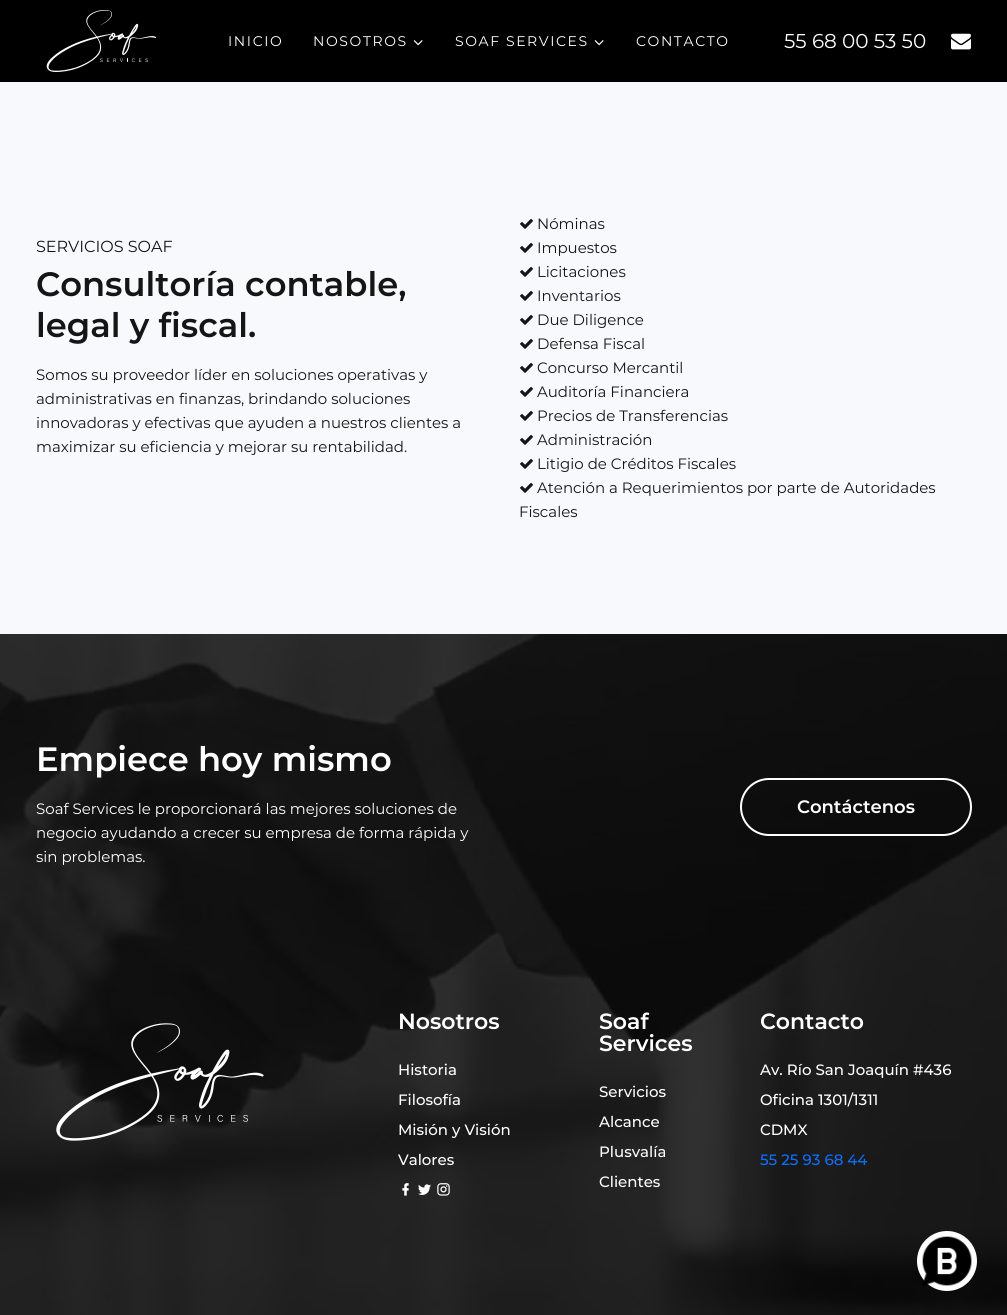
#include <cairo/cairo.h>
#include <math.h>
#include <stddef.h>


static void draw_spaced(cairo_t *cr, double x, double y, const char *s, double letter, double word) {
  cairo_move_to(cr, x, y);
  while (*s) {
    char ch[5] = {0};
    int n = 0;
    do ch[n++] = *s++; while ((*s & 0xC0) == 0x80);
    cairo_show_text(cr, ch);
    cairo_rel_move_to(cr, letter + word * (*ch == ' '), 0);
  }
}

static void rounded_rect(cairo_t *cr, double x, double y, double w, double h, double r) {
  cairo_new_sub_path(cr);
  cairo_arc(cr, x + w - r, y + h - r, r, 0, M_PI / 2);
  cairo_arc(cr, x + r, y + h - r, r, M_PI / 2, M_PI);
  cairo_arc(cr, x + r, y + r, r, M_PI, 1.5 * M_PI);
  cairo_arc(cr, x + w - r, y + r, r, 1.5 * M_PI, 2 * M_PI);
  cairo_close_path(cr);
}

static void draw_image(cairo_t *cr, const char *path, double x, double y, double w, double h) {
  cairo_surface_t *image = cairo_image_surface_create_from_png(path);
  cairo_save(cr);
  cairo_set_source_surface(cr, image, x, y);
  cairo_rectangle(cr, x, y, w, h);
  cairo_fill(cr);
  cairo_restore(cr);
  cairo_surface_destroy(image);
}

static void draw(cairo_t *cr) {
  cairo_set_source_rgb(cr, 1, 1, 1);
  cairo_paint(cr);
  cairo_set_source_rgb(cr, 0, 0, 0);
  cairo_rectangle(cr, 0, 0, 1007, 82);
  cairo_fill(cr);
  draw_image(cr, "images/1.png", 46, 9, 111, 63);
  draw_image(cr, "images/2.png", 413, 40, 10, 6);
  draw_image(cr, "images/2.png", 594, 40, 10, 6);
  draw_image(cr, "images/3.png", 951, 33, 20, 17);
  cairo_set_source_rgb(cr, 248 / 255.0, 249 / 255.0, 252 / 255.0);
  cairo_rectangle(cr, 0, 82, 1007, 552);
  cairo_fill(cr);
  draw_image(cr, "images/4.png", 520, 219, 13, 10);
  draw_image(cr, "images/4.png", 520, 243, 13, 10);
  draw_image(cr, "images/4.png", 520, 267, 13, 10);
  draw_image(cr, "images/4.png", 520, 291, 13, 10);
  draw_image(cr, "images/4.png", 520, 315, 13, 10);
  draw_image(cr, "images/4.png", 520, 339, 13, 10);
  draw_image(cr, "images/4.png", 520, 363, 13, 10);
  draw_image(cr, "images/4.png", 520, 387, 13, 10);
  draw_image(cr, "images/4.png", 520, 411, 13, 10);
  draw_image(cr, "images/4.png", 520, 435, 13, 10);
  draw_image(cr, "images/4.png", 520, 459, 13, 10);
  draw_image(cr, "images/4.png", 520, 483, 13, 10);
  draw_image(cr, "images/5.png", 0, 634, 1007, 681);
  cairo_set_source_rgba(cr, 0, 0, 0, 0.8);
  cairo_rectangle(cr, 0, 634, 1007, 681);
  cairo_fill(cr);
  rounded_rect(cr, 741, 779, 230, 56, 28);
  cairo_set_source_rgb(cr, 1, 1, 1);
  cairo_stroke(cr);
  draw_image(cr, "images/6.png", 56, 1023, 208, 118);
  draw_image(cr, "images/7.png", 402, 1183, 7, 13);
  draw_image(cr, "images/8.png", 418, 1184, 13, 11);
  draw_image(cr, "images/9.png", 437, 1183, 13, 13);
  cairo_arc(cr, 947, 1261, 30, 0, 2 * M_PI);
  cairo_fill(cr);
  draw_image(cr, "images/10.png", 922, 1236, 50, 50);
  cairo_select_font_face(cr, "Montserrat", CAIRO_FONT_SLANT_NORMAL, CAIRO_FONT_WEIGHT_NORMAL);
  cairo_set_font_size(cr, 14);
  draw_spaced(cr, 228, 46, "INICIO", 1.6, 0);
  draw_spaced(cr, 313, 46, "NOSOTROS", 1.6, 0);
  draw_spaced(cr, 455, 46, "SOAF SERVICES", 1.6, 0);
  draw_spaced(cr, 636, 46, "CONTACTO", 1.6, 0);
  cairo_set_font_size(cr, 20);
  cairo_move_to(cr, 784, 48);
  cairo_show_text(cr, "55 68 00 53 50");
  cairo_set_font_size(cr, 16);
  cairo_set_source_rgb(cr, 21 / 255.0, 21 / 255.0, 21 / 255.0);
  cairo_move_to(cr, 36, 252);
  cairo_show_text(cr, "SERVICIOS SOAF");
  cairo_select_font_face(cr, "Montserrat SemiBold", CAIRO_FONT_SLANT_NORMAL, CAIRO_FONT_WEIGHT_NORMAL);
  cairo_set_font_size(cr, 33.75);
  cairo_move_to(cr, 36, 296);
  cairo_show_text(cr, "Consultoría contable,");
  cairo_move_to(cr, 36, 337);
  cairo_show_text(cr, "legal y fiscal.");
  cairo_select_font_face(cr, "Montserrat", CAIRO_FONT_SLANT_NORMAL, CAIRO_FONT_WEIGHT_NORMAL);
  cairo_set_font_size(cr, 15);
  cairo_move_to(cr, 36, 380);
  cairo_show_text(cr, "Somos su proveedor líder en soluciones operativas y");
  cairo_move_to(cr, 36, 404);
  cairo_show_text(cr, "administrativas en finanzas, brindando soluciones");
  cairo_move_to(cr, 36, 428);
  cairo_show_text(cr, "innovadoras y efectivas que ayuden a nuestros clientes a");
  cairo_move_to(cr, 36, 452);
  cairo_show_text(cr, "maximizar su eficiencia y mejorar su rentabilidad.");
  cairo_move_to(cr, 537, 229);
  cairo_show_text(cr, "Nóminas");
  cairo_move_to(cr, 537, 253);
  cairo_show_text(cr, "Impuestos");
  cairo_move_to(cr, 537, 277);
  cairo_show_text(cr, "Licitaciones");
  cairo_move_to(cr, 537, 301);
  cairo_show_text(cr, "Inventarios");
  cairo_move_to(cr, 537, 325);
  cairo_show_text(cr, "Due Diligence");
  cairo_move_to(cr, 537, 349);
  cairo_show_text(cr, "Defensa Fiscal");
  cairo_move_to(cr, 537, 373);
  cairo_show_text(cr, "Concurso Mercantil");
  cairo_move_to(cr, 537, 397);
  cairo_show_text(cr, "Auditoría Financiera");
  cairo_move_to(cr, 537, 421);
  cairo_show_text(cr, "Precios de Transferencias");
  cairo_move_to(cr, 537, 445);
  cairo_show_text(cr, "Administración");
  cairo_move_to(cr, 537, 469);
  cairo_show_text(cr, "Litigio de Créditos Fiscales");
  cairo_move_to(cr, 537, 493);
  cairo_show_text(cr, "Atención a Requerimientos por parte de Autoridades");
  cairo_move_to(cr, 519, 517);
  cairo_show_text(cr, "Fiscales");
  cairo_select_font_face(cr, "Montserrat SemiBold", CAIRO_FONT_SLANT_NORMAL, CAIRO_FONT_WEIGHT_NORMAL);
  cairo_set_font_size(cr, 33.75);
  cairo_set_source_rgb(cr, 1, 1, 1);
  cairo_move_to(cr, 36, 771);
  cairo_show_text(cr, "Empiece hoy mismo");
  cairo_select_font_face(cr, "Montserrat", CAIRO_FONT_SLANT_NORMAL, CAIRO_FONT_WEIGHT_NORMAL);
  cairo_set_font_size(cr, 15);
  cairo_move_to(cr, 36, 814);
  cairo_show_text(cr, "Soaf Services le proporcionará las mejores soluciones de");
  cairo_move_to(cr, 36, 838);
  cairo_show_text(cr, "negocio ayudando a crecer su empresa de forma rápida y");
  cairo_move_to(cr, 36, 862);
  cairo_show_text(cr, "sin problemas.");
  cairo_select_font_face(cr, "Montserrat SemiBold", CAIRO_FONT_SLANT_NORMAL, CAIRO_FONT_WEIGHT_NORMAL);
  cairo_set_font_size(cr, 18);
  cairo_move_to(cr, 797, 813);
  cairo_show_text(cr, "Contáctenos");
  cairo_set_font_size(cr, 22);
  cairo_move_to(cr, 398, 1029);
  cairo_show_text(cr, "Nosotros");
  cairo_select_font_face(cr, "Montserrat Medium", CAIRO_FONT_SLANT_NORMAL, CAIRO_FONT_WEIGHT_NORMAL);
  cairo_set_font_size(cr, 15);
  cairo_move_to(cr, 398, 1075);
  cairo_show_text(cr, "Historia");
  cairo_move_to(cr, 398, 1105);
  cairo_show_text(cr, "Filosofía");
  cairo_move_to(cr, 398, 1135);
  cairo_show_text(cr, "Misión y Visión");
  cairo_move_to(cr, 398, 1165);
  cairo_show_text(cr, "Valores");
  cairo_select_font_face(cr, "Montserrat SemiBold", CAIRO_FONT_SLANT_NORMAL, CAIRO_FONT_WEIGHT_NORMAL);
  cairo_set_font_size(cr, 22);
  cairo_move_to(cr, 599, 1029);
  cairo_show_text(cr, "Soaf");
  cairo_move_to(cr, 599, 1051);
  cairo_show_text(cr, "Services");
  cairo_select_font_face(cr, "Montserrat Medium", CAIRO_FONT_SLANT_NORMAL, CAIRO_FONT_WEIGHT_NORMAL);
  cairo_set_font_size(cr, 15);
  cairo_move_to(cr, 599, 1097);
  cairo_show_text(cr, "Servicios");
  cairo_move_to(cr, 599, 1127);
  cairo_show_text(cr, "Alcance");
  cairo_move_to(cr, 599, 1157);
  cairo_show_text(cr, "Plusvalía");
  cairo_move_to(cr, 599, 1187);
  cairo_show_text(cr, "Clientes");
  cairo_select_font_face(cr, "Montserrat SemiBold", CAIRO_FONT_SLANT_NORMAL, CAIRO_FONT_WEIGHT_NORMAL);
  cairo_set_font_size(cr, 22);
  cairo_move_to(cr, 760, 1029);
  cairo_show_text(cr, "Contacto");
  cairo_select_font_face(cr, "Montserrat Medium", CAIRO_FONT_SLANT_NORMAL, CAIRO_FONT_WEIGHT_NORMAL);
  cairo_set_font_size(cr, 15);
  cairo_move_to(cr, 760, 1075);
  cairo_show_text(cr, "Av. Río San Joaquín #436");
  cairo_move_to(cr, 760, 1105);
  cairo_show_text(cr, "Oficina 1301/1311");
  cairo_move_to(cr, 760, 1135);
  cairo_show_text(cr, "CDMX");
  cairo_set_source_rgb(cr, 13 / 255.0, 110 / 255.0, 253 / 255.0);
  cairo_move_to(cr, 760, 1165);
  cairo_show_text(cr, "55 25 93 68 44");
}

int main(void) {
  cairo_surface_t *surface = cairo_image_surface_create(CAIRO_FORMAT_RGB24, 1007, 1315);
  cairo_t *cr = cairo_create(surface);
  cairo_font_options_t *options = cairo_font_options_create();
  cairo_font_options_set_hint_metrics(options, CAIRO_HINT_METRICS_OFF);
  cairo_font_options_set_hint_style(options, CAIRO_HINT_STYLE_NONE);
  cairo_set_font_options(cr, options);
  cairo_set_miter_limit(cr, 4);
  draw(cr);
  cairo_surface_write_to_png(surface, "out.png");
  cairo_font_options_destroy(options);
  cairo_destroy(cr);
  cairo_surface_destroy(surface);
  return 0;
}
